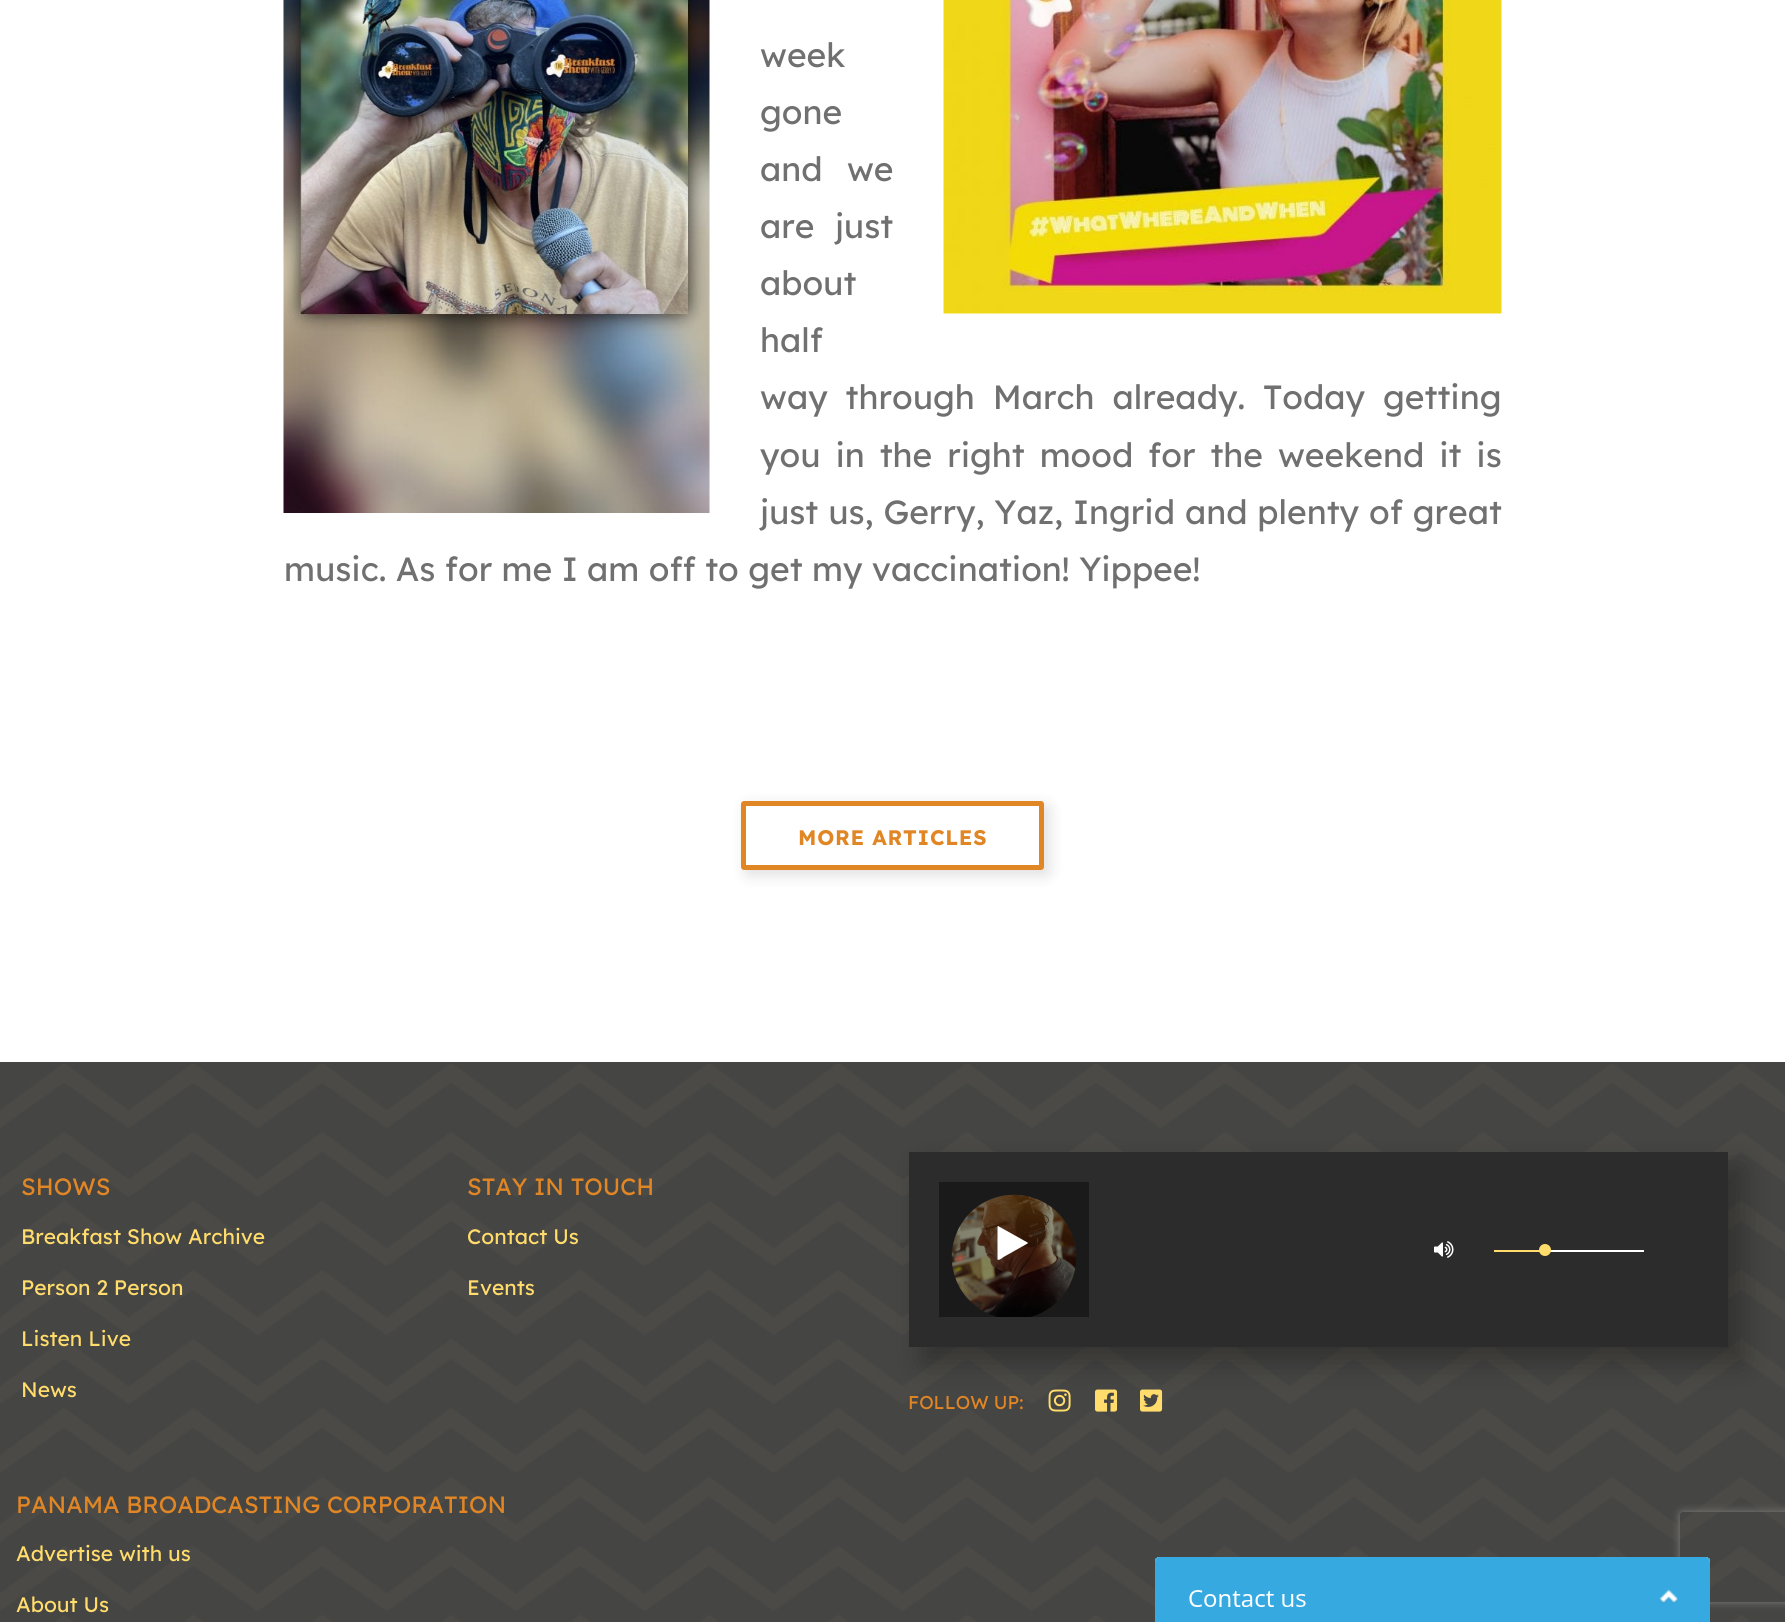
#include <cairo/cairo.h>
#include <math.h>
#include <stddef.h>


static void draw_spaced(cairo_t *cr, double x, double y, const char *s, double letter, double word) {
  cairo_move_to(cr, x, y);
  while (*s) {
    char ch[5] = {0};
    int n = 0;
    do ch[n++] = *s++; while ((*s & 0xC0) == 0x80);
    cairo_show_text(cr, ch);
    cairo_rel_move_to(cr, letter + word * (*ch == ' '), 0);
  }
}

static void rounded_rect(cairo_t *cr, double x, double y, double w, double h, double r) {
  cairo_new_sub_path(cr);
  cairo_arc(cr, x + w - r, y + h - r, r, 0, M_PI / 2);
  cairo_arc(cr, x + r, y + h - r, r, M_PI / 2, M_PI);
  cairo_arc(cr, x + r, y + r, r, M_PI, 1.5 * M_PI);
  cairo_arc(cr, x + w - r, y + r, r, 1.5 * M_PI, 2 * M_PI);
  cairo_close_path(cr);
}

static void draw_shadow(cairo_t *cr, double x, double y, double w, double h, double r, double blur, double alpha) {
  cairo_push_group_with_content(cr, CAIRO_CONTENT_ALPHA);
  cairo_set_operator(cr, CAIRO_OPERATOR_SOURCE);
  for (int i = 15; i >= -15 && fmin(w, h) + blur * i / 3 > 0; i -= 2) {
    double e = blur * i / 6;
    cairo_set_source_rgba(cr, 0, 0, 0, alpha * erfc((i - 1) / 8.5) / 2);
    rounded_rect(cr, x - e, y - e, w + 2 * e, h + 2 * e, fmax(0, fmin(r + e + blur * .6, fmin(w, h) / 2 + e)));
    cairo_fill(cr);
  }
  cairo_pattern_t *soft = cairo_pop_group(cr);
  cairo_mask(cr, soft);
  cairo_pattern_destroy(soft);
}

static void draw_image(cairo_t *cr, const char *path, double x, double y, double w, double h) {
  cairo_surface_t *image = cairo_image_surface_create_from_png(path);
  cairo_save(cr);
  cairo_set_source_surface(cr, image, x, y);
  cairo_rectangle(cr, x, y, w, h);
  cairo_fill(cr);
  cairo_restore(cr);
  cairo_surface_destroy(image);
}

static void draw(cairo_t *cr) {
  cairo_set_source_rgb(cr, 1, 1, 1);
  cairo_paint(cr);
  draw_image(cr, "images/1.png", 283, 0, 427, 513);
  draw_image(cr, "images/2.png", 943, 0, 559, 314);
  cairo_save(cr);
  cairo_set_fill_rule(cr, CAIRO_FILL_RULE_EVEN_ODD);
  cairo_new_path(cr);
  cairo_move_to(cr, 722, 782);
  cairo_line_to(cr, 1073, 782);
  cairo_line_to(cr, 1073, 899);
  cairo_line_to(cr, 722, 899);
  cairo_close_path(cr);
  cairo_move_to(cr, 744, 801);
  cairo_line_to(cr, 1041, 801);
  cairo_curve_to(cr, 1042.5, 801, 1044, 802.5, 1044, 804);
  cairo_line_to(cr, 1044, 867);
  cairo_curve_to(cr, 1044, 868.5, 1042.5, 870, 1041, 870);
  cairo_line_to(cr, 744, 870);
  cairo_curve_to(cr, 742.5, 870, 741, 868.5, 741, 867);
  cairo_line_to(cr, 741, 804);
  cairo_curve_to(cr, 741, 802.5, 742.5, 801, 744, 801);
  cairo_close_path(cr);
  cairo_clip(cr);
  cairo_set_source_rgb(cr, 0, 0, 0);
  draw_shadow(cr, 746, 806, 303, 69, 3, 7.5, 0.13);
  cairo_restore(cr);
  rounded_rect(cr, 743.5, 803.5, 298, 64, 0.5);
  cairo_set_source_rgb(cr, 225 / 255.0, 134 / 255.0, 37 / 255.0);
  cairo_set_line_width(cr, 5);
  cairo_stroke(cr);
  cairo_set_source_rgb(cr, 69 / 255.0, 69 / 255.0, 68 / 255.0);
  cairo_rectangle(cr, 0, 1062, 1785, 560);
  cairo_fill(cr);
  draw_image(cr, "images/3.png", 0, 1064, 1785, 558);
  cairo_set_source_rgb(cr, 0, 0, 0);
  draw_shadow(cr, 924, 1167, 819, 195, 0, 15, 0.3);
  cairo_set_source_rgb(cr, 44 / 255.0, 44 / 255.0, 44 / 255.0);
  cairo_rectangle(cr, 909, 1152, 819, 195);
  cairo_fill(cr);
  draw_image(cr, "images/4.png", 951, 1194, 126, 123);
  cairo_set_source_rgba(cr, 0, 0, 0, 0.4);
  cairo_rectangle(cr, 939, 1182, 150, 135);
  cairo_fill(cr);
  cairo_set_source_rgb(cr, 1, 1, 1);
  cairo_new_path(cr);
  cairo_move_to(cr, 1027.5, 1243.5);
  cairo_line_to(cr, 1003.5, 1257);
  cairo_curve_to(cr, 1003, 1257.5, 998.5, 1261, 997.5, 1259.5);
  cairo_line_to(cr, 997.5, 1226.5);
  cairo_line_to(cr, 998, 1226);
  cairo_line_to(cr, 1027.5, 1242.5);
  cairo_line_to(cr, 1028, 1243);
  cairo_close_path(cr);
  cairo_fill(cr);
  draw_image(cr, "images/5.png", 1434, 1241, 20, 17);
  cairo_set_source_rgb(cr, 1, 220 / 255.0, 107 / 255.0);
  cairo_rectangle(cr, 1494, 1250, 150, 2);
  cairo_fill(cr);
  cairo_set_source_rgb(cr, 1, 1, 1);
  rounded_rect(cr, 1539, 1250, 105, 2, 1);
  cairo_fill(cr);
  cairo_set_source_rgb(cr, 1, 220 / 255.0, 107 / 255.0);
  cairo_arc(cr, 1545, 1250, 6, 0, 2 * M_PI);
  cairo_fill(cr);
  draw_image(cr, "images/6.png", 1048, 1389, 23, 23);
  draw_image(cr, "images/7.png", 1095, 1389, 23, 23);
  draw_image(cr, "images/8.png", 1140, 1389, 23, 23);
  cairo_save(cr);
  cairo_set_fill_rule(cr, CAIRO_FILL_RULE_EVEN_ODD);
  cairo_new_path(cr);
  cairo_move_to(cr, 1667, 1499);
  cairo_line_to(cr, 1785, 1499);
  cairo_line_to(cr, 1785, 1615);
  cairo_line_to(cr, 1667, 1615);
  cairo_close_path(cr);
  cairo_move_to(cr, 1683, 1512);
  cairo_line_to(cr, 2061, 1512);
  cairo_curve_to(cr, 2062.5, 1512, 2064, 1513.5, 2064, 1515);
  cairo_line_to(cr, 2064, 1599);
  cairo_curve_to(cr, 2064, 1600.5, 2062.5, 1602, 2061, 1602);
  cairo_line_to(cr, 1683, 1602);
  cairo_curve_to(cr, 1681.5, 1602, 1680, 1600.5, 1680, 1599);
  cairo_line_to(cr, 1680, 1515);
  cairo_curve_to(cr, 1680, 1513.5, 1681.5, 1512, 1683, 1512);
  cairo_close_path(cr);
  cairo_clip(cr);
  cairo_set_source_rgb(cr, 128 / 255.0, 128 / 255.0, 128 / 255.0);
  draw_shadow(cr, 1680, 1512, 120, 90, 3, 4, 1);
  cairo_restore(cr);
  draw_image(cr, "images/9.png", 1155, 1557, 555, 65);
  cairo_select_font_face(cr, "Lexend Deca", CAIRO_FONT_SLANT_NORMAL, CAIRO_FONT_WEIGHT_NORMAL);
  cairo_set_font_size(cr, 33.6);
  cairo_set_source_rgb(cr, 112 / 255.0, 112 / 255.0, 112 / 255.0);
  cairo_move_to(cr, 760, 67);
  cairo_show_text(cr, "week");
  cairo_move_to(cr, 760, 124);
  cairo_show_text(cr, "gone");
  draw_spaced(cr, 760, 181, "and we", 0, 15);
  draw_spaced(cr, 760, 238, "are just", 0, 11);
  cairo_move_to(cr, 760, 295);
  cairo_show_text(cr, "about");
  cairo_move_to(cr, 760, 352);
  cairo_show_text(cr, "half");
  draw_spaced(cr, 760, 409, "way through March already. Today getting", 0, 8.5);
  draw_spaced(cr, 760, 467, "you in the right mood for the weekend it is", 0, 5.5);
  draw_spaced(cr, 760, 524, "just us, Gerry, Yaz, Ingrid and plenty of great", 0, 0.5);
  cairo_move_to(cr, 284, 581);
  cairo_show_text(cr, "music. As for me I am off to get my vaccination! Yippee!");
  cairo_select_font_face(cr, "Lexend Deca", CAIRO_FONT_SLANT_NORMAL, CAIRO_FONT_WEIGHT_BOLD);
  cairo_set_font_size(cr, 21);
  cairo_set_source_rgb(cr, 225 / 255.0, 134 / 255.0, 37 / 255.0);
  draw_spaced(cr, 798, 845, "MORE ARTICLES", 0.75, 0);
  cairo_select_font_face(cr, "Lexend Deca", CAIRO_FONT_SLANT_NORMAL, CAIRO_FONT_WEIGHT_NORMAL);
  cairo_set_font_size(cr, 23.6);
  cairo_move_to(cr, 21, 1195);
  cairo_show_text(cr, "SHOWS");
  cairo_set_font_size(cr, 21);
  cairo_set_source_rgb(cr, 1, 220 / 255.0, 107 / 255.0);
  cairo_move_to(cr, 21, 1244);
  cairo_show_text(cr, "Breakfast Show Archive");
  cairo_move_to(cr, 21, 1295);
  cairo_show_text(cr, "Person 2 Person");
  cairo_move_to(cr, 21, 1346);
  cairo_show_text(cr, "Listen Live");
  cairo_move_to(cr, 21, 1397);
  cairo_show_text(cr, "News");
  cairo_set_font_size(cr, 23.6);
  cairo_set_source_rgb(cr, 225 / 255.0, 134 / 255.0, 37 / 255.0);
  cairo_move_to(cr, 467, 1195);
  cairo_show_text(cr, "STAY IN TOUCH");
  cairo_set_font_size(cr, 21);
  cairo_set_source_rgb(cr, 1, 220 / 255.0, 107 / 255.0);
  cairo_move_to(cr, 467, 1244);
  cairo_show_text(cr, "Contact Us");
  cairo_move_to(cr, 467, 1295);
  cairo_show_text(cr, "Events");
  cairo_set_font_size(cr, 23.6);
  cairo_set_source_rgb(cr, 225 / 255.0, 134 / 255.0, 37 / 255.0);
  cairo_move_to(cr, 16, 1513);
  cairo_show_text(cr, "PANAMA BROADCASTING CORPORATION");
  cairo_set_font_size(cr, 21);
  cairo_set_source_rgb(cr, 1, 220 / 255.0, 107 / 255.0);
  cairo_move_to(cr, 16, 1561);
  cairo_show_text(cr, "Advertise with us");
  cairo_move_to(cr, 16, 1612);
  cairo_show_text(cr, "About Us");
  cairo_set_font_size(cr, 18.5);
  cairo_set_source_rgb(cr, 225 / 255.0, 134 / 255.0, 37 / 255.0);
  cairo_move_to(cr, 908, 1409);
  cairo_show_text(cr, "FOLLOW UP:");
}

int main(void) {
  cairo_surface_t *surface = cairo_image_surface_create(CAIRO_FORMAT_RGB24, 1785, 1622);
  cairo_t *cr = cairo_create(surface);
  cairo_font_options_t *options = cairo_font_options_create();
  cairo_font_options_set_hint_metrics(options, CAIRO_HINT_METRICS_OFF);
  cairo_font_options_set_hint_style(options, CAIRO_HINT_STYLE_NONE);
  cairo_set_font_options(cr, options);
  cairo_set_miter_limit(cr, 4);
  draw(cr);
  cairo_surface_write_to_png(surface, "out.png");
  cairo_font_options_destroy(options);
  cairo_destroy(cr);
  cairo_surface_destroy(surface);
  return 0;
}
